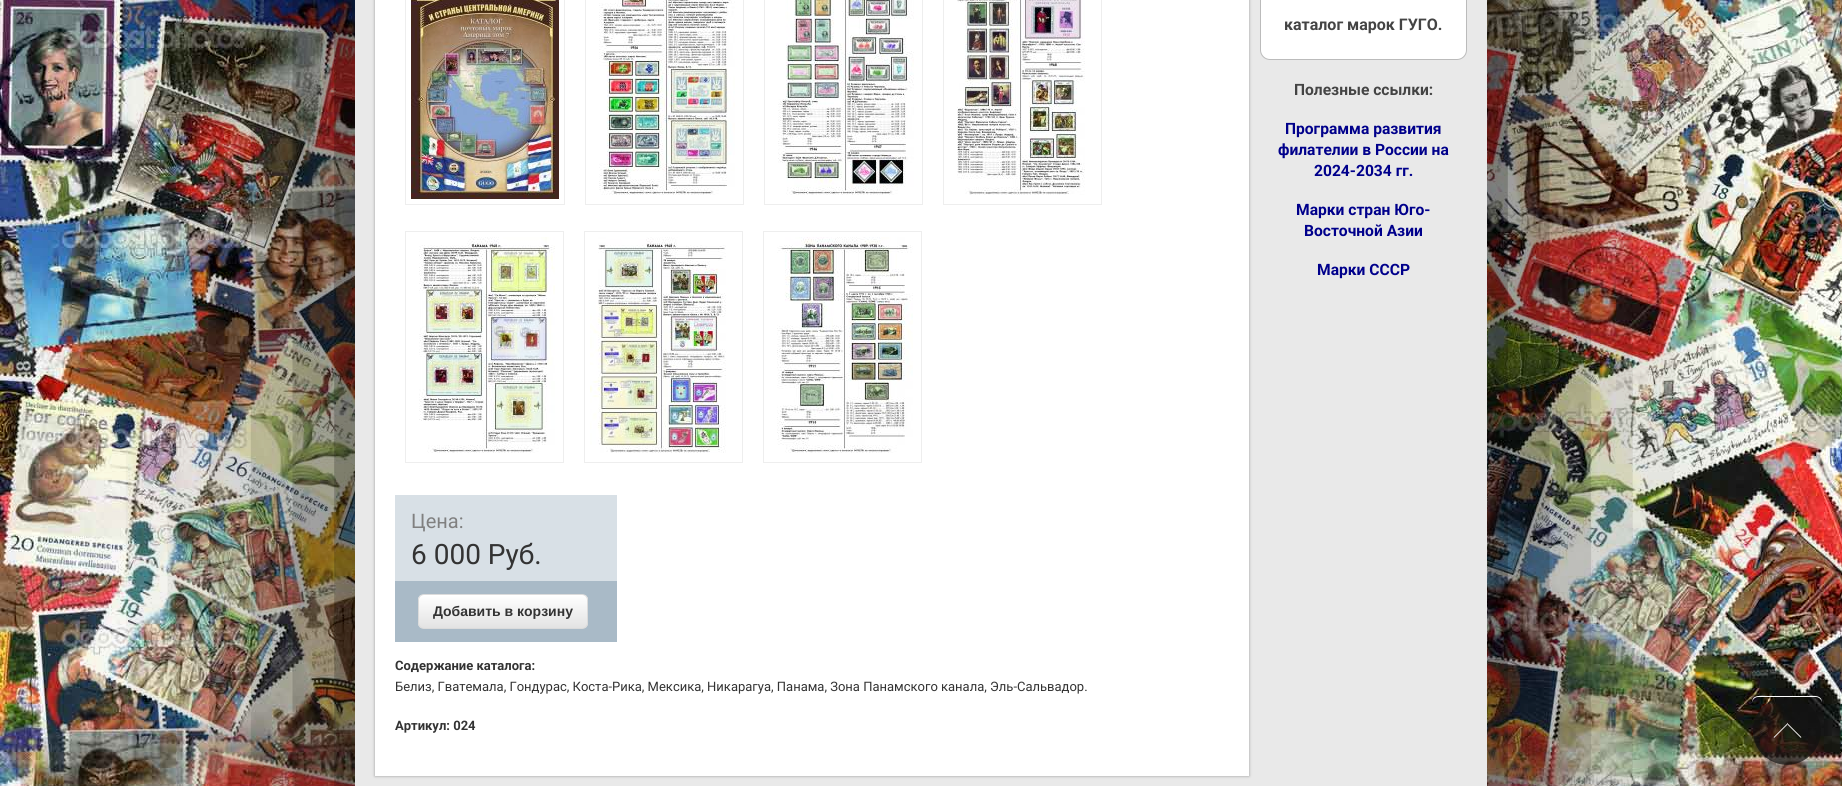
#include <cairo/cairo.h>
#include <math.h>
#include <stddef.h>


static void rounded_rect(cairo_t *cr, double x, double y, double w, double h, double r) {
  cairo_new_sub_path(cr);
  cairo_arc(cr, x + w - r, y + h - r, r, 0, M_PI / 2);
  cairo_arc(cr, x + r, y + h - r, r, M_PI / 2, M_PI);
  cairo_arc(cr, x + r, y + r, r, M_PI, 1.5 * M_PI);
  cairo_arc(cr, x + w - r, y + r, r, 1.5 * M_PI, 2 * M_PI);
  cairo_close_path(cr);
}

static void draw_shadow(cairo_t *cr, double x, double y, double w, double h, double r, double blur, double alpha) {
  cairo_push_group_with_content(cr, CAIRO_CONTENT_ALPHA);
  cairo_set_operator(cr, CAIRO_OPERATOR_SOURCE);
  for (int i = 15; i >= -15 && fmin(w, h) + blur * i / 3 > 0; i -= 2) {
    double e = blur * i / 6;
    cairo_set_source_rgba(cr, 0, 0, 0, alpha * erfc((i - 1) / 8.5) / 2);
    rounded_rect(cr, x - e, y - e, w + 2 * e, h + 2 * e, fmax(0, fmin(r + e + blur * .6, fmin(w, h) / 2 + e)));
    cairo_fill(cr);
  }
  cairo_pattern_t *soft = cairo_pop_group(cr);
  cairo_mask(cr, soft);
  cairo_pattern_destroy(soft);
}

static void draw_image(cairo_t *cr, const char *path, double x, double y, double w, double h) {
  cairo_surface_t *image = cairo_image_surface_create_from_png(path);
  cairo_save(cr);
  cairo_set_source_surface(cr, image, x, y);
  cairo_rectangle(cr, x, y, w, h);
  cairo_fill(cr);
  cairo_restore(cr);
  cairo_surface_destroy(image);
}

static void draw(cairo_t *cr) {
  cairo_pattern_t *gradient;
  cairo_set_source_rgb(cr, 1, 1, 1);
  cairo_paint(cr);
  draw_image(cr, "images/1.png", 0, 0, 1842, 786);
  cairo_set_source_rgb(cr, 0, 0, 0);
  draw_shadow(cr, 355, -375, 1132, 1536, 0, 125, 1);
  cairo_set_source_rgb(cr, 233 / 255.0, 233 / 255.0, 233 / 255.0);
  cairo_rectangle(cr, 355, 0, 1132, 786);
  cairo_fill(cr);
  cairo_set_source_rgb(cr, 1, 1, 1);
  rounded_rect(cr, 1260.5, -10.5, 206, 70, 9.5);
  cairo_fill_preserve(cr);
  cairo_set_source_rgb(cr, 187 / 255.0, 187 / 255.0, 187 / 255.0);
  cairo_set_line_width(cr, 1);
  cairo_stroke(cr);
  cairo_set_source_rgb(cr, 153 / 255.0, 153 / 255.0, 153 / 255.0);
  draw_shadow(cr, 375, -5, 874, 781, 0, 1.5, 1);
  cairo_set_source_rgb(cr, 1, 1, 1);
  cairo_rectangle(cr, 375, 0, 874, 776);
  cairo_fill(cr);
  cairo_rectangle(cr, 405.5, -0.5, 159, 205);
  cairo_set_source_rgb(cr, 238 / 255.0, 238 / 255.0, 238 / 255.0);
  cairo_stroke(cr);
  draw_image(cr, "images/2.png", 411, 0, 148, 199);
  cairo_rectangle(cr, 585.5, -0.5, 158, 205);
  cairo_stroke(cr);
  draw_image(cr, "images/3.png", 599, 0, 136, 195);
  cairo_rectangle(cr, 764.5, -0.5, 158, 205);
  cairo_stroke(cr);
  draw_image(cr, "images/4.png", 778, 0, 136, 195);
  cairo_rectangle(cr, 943.5, -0.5, 158, 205);
  cairo_stroke(cr);
  draw_image(cr, "images/5.png", 957, 0, 128, 195);
  cairo_rectangle(cr, 405.5, 231.5, 158, 231);
  cairo_stroke(cr);
  draw_image(cr, "images/6.png", 419, 237, 136, 216);
  cairo_rectangle(cr, 584.5, 231.5, 158, 231);
  cairo_stroke(cr);
  draw_image(cr, "images/7.png", 590, 237, 136, 216);
  cairo_rectangle(cr, 763.5, 231.5, 158, 231);
  cairo_stroke(cr);
  draw_image(cr, "images/8.png", 777, 237, 136, 216);
  cairo_set_source_rgb(cr, 216 / 255.0, 224 / 255.0, 230 / 255.0);
  cairo_rectangle(cr, 395, 495, 222, 86);
  cairo_fill(cr);
  cairo_set_source_rgb(cr, 169 / 255.0, 186 / 255.0, 199 / 255.0);
  cairo_rectangle(cr, 395, 581, 222, 61);
  cairo_fill(cr);
  cairo_save(cr);
  rounded_rect(cr, 418, 594, 170, 35, 6);
  cairo_clip(cr);
  gradient = cairo_pattern_create_linear(503, 595, 503, 628);
  cairo_pattern_add_color_stop_rgba(gradient, 0, 1, 1, 1, 1);
  cairo_pattern_add_color_stop_rgba(gradient, 1, 227 / 255.0, 227 / 255.0, 227 / 255.0, 1);
  cairo_set_source(cr, gradient);
  cairo_pattern_destroy(gradient);
  cairo_rectangle(cr, 418, 595, 170, 33);
  cairo_fill(cr);
  cairo_restore(cr);
  rounded_rect(cr, 418.5, 594.5, 169, 34, 5.5);
  cairo_set_source_rgb(cr, 219 / 255.0, 219 / 255.0, 219 / 255.0);
  cairo_stroke(cr);
  draw_image(cr, "images/9.png", 1753, 699, 68, 66);
  cairo_set_source_rgb(cr, 1, 1, 1);
  cairo_new_path(cr);
  cairo_move_to(cr, 1758, 697);
  cairo_line_to(cr, 1816, 697);
  cairo_curve_to(cr, 1819, 697, 1822, 700, 1822, 703);
  cairo_curve_to(cr, 1822, 694, 1813, 696, 1806, 696);
  cairo_line_to(cr, 1768, 696);
  cairo_curve_to(cr, 1761, 696, 1752, 694, 1752, 703);
  cairo_curve_to(cr, 1752, 700, 1755, 697, 1758, 697);
  cairo_close_path(cr);
  cairo_fill(cr);
  cairo_select_font_face(cr, "Roboto", CAIRO_FONT_SLANT_NORMAL, CAIRO_FONT_WEIGHT_BOLD);
  cairo_set_font_size(cr, 16);
  cairo_set_source_rgb(cr, 68 / 255.0, 68 / 255.0, 68 / 255.0);
  cairo_move_to(cr, 1284, 30);
  cairo_show_text(cr, "каталог марок ГУГО.");
  cairo_set_font_size(cr, 15.6);
  cairo_move_to(cr, 1294, 95);
  cairo_show_text(cr, "Полезные ссылки:");
  cairo_set_source_rgb(cr, 0, 0, 139 / 255.0);
  cairo_move_to(cr, 1285, 134);
  cairo_show_text(cr, "Программа развития");
  cairo_move_to(cr, 1278, 155);
  cairo_show_text(cr, "филателии в России на");
  cairo_move_to(cr, 1314, 176);
  cairo_show_text(cr, "2024-2034 гг.");
  cairo_move_to(cr, 1296, 215);
  cairo_show_text(cr, "Марки стран Юго-");
  cairo_move_to(cr, 1304, 236);
  cairo_show_text(cr, "Восточной Азии");
  cairo_move_to(cr, 1317, 275);
  cairo_show_text(cr, "Марки СССР");
  cairo_select_font_face(cr, "Roboto", CAIRO_FONT_SLANT_NORMAL, CAIRO_FONT_WEIGHT_NORMAL);
  cairo_set_font_size(cr, 20);
  cairo_set_source_rgb(cr, 128 / 255.0, 128 / 255.0, 128 / 255.0);
  cairo_move_to(cr, 411, 528);
  cairo_show_text(cr, "Цена:");
  cairo_set_font_size(cr, 28);
  cairo_set_source_rgb(cr, 51 / 255.0, 51 / 255.0, 51 / 255.0);
  cairo_move_to(cr, 411, 564);
  cairo_show_text(cr, "6 000 Руб.");
  cairo_select_font_face(cr, "Liberation Sans", CAIRO_FONT_SLANT_NORMAL, CAIRO_FONT_WEIGHT_BOLD);
  cairo_set_font_size(cr, 14);
  cairo_move_to(cr, 433, 616);
  cairo_show_text(cr, "Добавить в корзину");
  cairo_select_font_face(cr, "Roboto", CAIRO_FONT_SLANT_NORMAL, CAIRO_FONT_WEIGHT_BOLD);
  cairo_set_font_size(cr, 13);
  cairo_move_to(cr, 395, 670);
  cairo_show_text(cr, "Содержание каталога:");
  cairo_select_font_face(cr, "Roboto", CAIRO_FONT_SLANT_NORMAL, CAIRO_FONT_WEIGHT_NORMAL);
  cairo_move_to(cr, 395, 691);
  cairo_show_text(cr, "Белиз, Гватемала, Гондурас, Коста-Рика, Мексика, Никарагуа, Панама, Зона Панамского канала, Эль-Сальвадор.");
  cairo_select_font_face(cr, "Roboto", CAIRO_FONT_SLANT_NORMAL, CAIRO_FONT_WEIGHT_BOLD);
  cairo_move_to(cr, 395, 730);
  cairo_show_text(cr, "Артикул: 024");
}

int main(void) {
  cairo_surface_t *surface = cairo_image_surface_create(CAIRO_FORMAT_RGB24, 1842, 786);
  cairo_t *cr = cairo_create(surface);
  cairo_font_options_t *options = cairo_font_options_create();
  cairo_font_options_set_hint_metrics(options, CAIRO_HINT_METRICS_OFF);
  cairo_font_options_set_hint_style(options, CAIRO_HINT_STYLE_NONE);
  cairo_set_font_options(cr, options);
  cairo_set_miter_limit(cr, 4);
  draw(cr);
  cairo_surface_write_to_png(surface, "out.png");
  cairo_font_options_destroy(options);
  cairo_destroy(cr);
  cairo_surface_destroy(surface);
  return 0;
}
